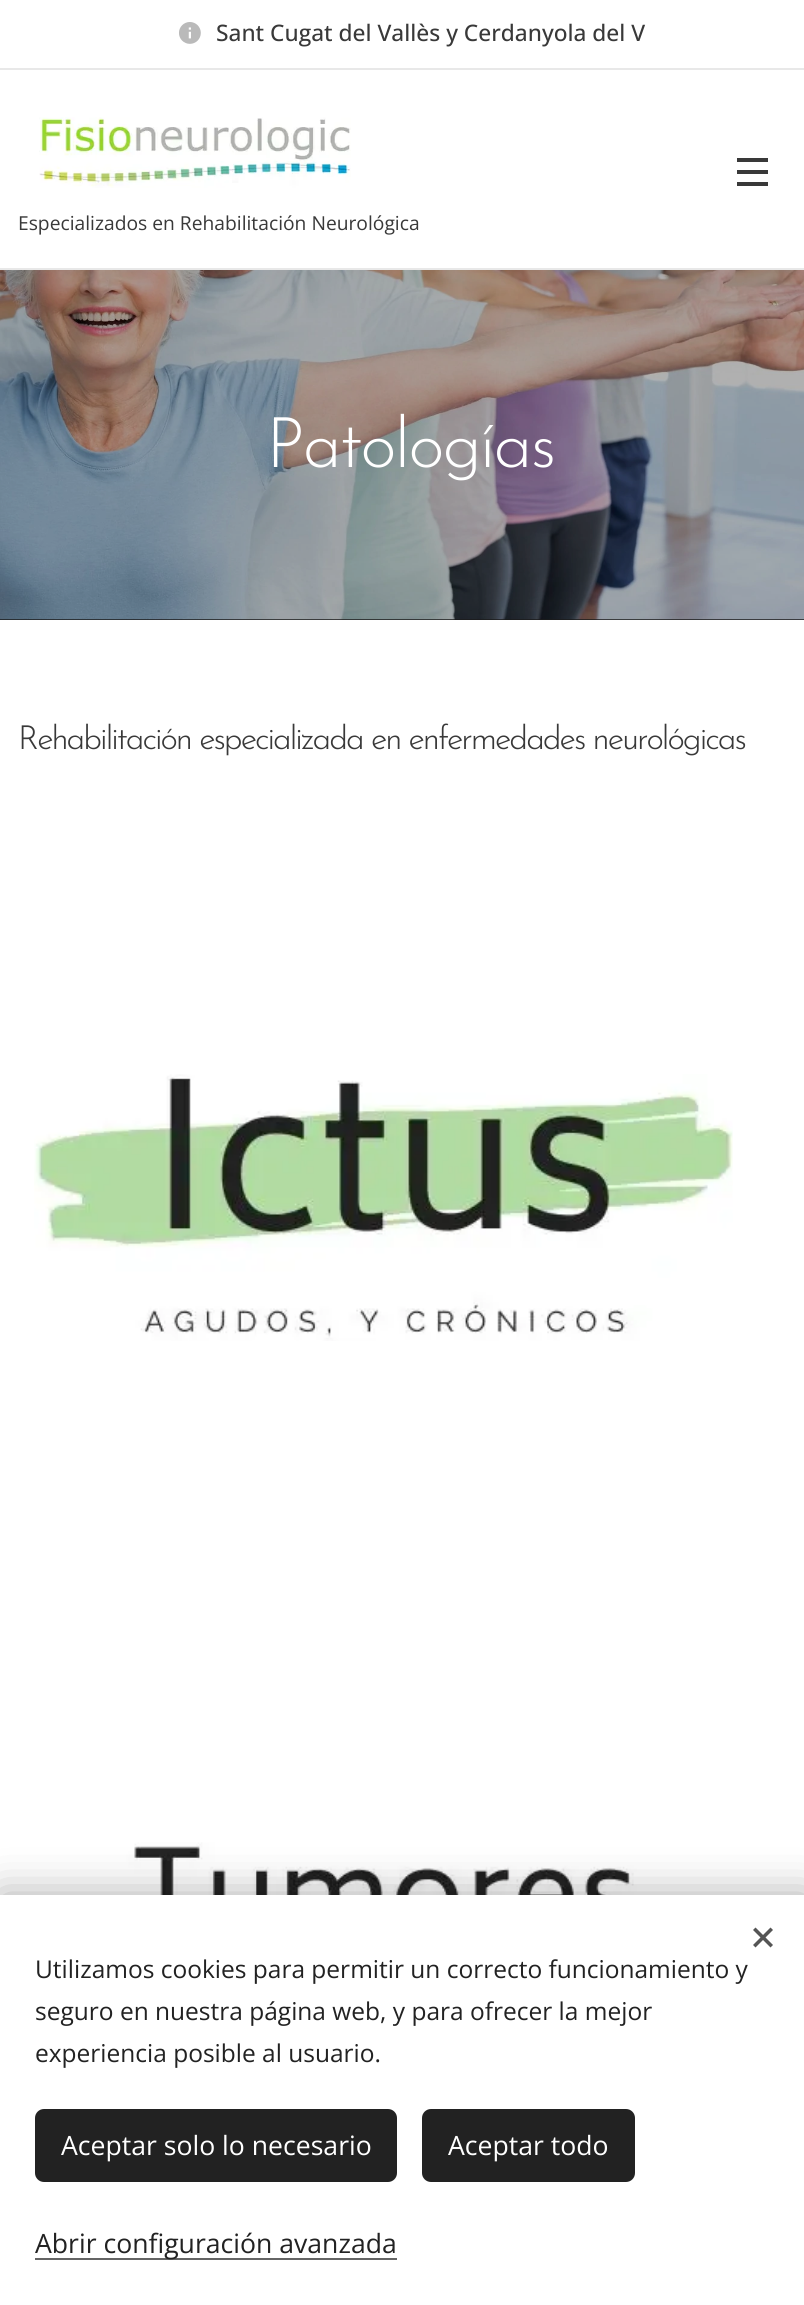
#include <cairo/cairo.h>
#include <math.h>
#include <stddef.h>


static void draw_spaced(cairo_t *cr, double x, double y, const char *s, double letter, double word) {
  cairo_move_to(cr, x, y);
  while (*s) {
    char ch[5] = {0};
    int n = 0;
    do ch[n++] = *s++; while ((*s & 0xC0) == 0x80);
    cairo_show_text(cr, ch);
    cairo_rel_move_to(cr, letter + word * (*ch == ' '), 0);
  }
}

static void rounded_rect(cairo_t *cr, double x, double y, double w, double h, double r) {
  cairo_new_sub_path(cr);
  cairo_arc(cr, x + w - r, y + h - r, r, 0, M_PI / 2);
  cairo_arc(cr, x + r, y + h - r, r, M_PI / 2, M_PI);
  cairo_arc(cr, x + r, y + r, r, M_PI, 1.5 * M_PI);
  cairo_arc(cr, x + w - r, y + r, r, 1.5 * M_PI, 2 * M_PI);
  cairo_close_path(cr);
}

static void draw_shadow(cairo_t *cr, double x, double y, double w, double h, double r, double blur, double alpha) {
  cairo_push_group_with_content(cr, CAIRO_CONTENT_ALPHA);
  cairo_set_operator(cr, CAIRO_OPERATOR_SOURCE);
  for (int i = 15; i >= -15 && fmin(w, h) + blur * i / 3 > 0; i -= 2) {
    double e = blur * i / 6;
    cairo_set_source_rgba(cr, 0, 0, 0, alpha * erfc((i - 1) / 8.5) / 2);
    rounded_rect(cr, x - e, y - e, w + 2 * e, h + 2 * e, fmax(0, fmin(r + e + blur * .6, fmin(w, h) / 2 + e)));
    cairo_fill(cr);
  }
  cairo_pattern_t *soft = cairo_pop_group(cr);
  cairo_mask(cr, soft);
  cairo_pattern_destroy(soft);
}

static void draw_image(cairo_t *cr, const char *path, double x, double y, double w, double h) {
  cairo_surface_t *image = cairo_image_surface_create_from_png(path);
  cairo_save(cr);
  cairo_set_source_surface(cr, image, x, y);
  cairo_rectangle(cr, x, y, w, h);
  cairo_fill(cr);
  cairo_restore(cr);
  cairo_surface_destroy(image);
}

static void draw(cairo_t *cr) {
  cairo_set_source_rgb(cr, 1, 1, 1);
  cairo_paint(cr);
  draw_image(cr, "images/1.png", 179, 22, 22, 22);
  cairo_set_source_rgb(cr, 232 / 255.0, 232 / 255.0, 232 / 255.0);
  cairo_rectangle(cr, 0, 68, 804, 2);
  cairo_fill(cr);
  cairo_set_source_rgb(cr, 57 / 255.0, 57 / 255.0, 57 / 255.0);
  cairo_rectangle(cr, 737, 170, 31, 4);
  cairo_fill(cr);
  cairo_rectangle(cr, 737, 158, 31, 4);
  cairo_fill(cr);
  cairo_rectangle(cr, 737, 182, 31, 4);
  cairo_fill(cr);
  draw_image(cr, "images/2.png", 39, 117, 312, 71);
  cairo_set_source_rgb(cr, 232 / 255.0, 232 / 255.0, 232 / 255.0);
  cairo_rectangle(cr, 0, 268, 804, 2);
  cairo_fill(cr);
  cairo_set_source_rgb(cr, 27 / 255.0, 27 / 255.0, 27 / 255.0);
  cairo_rectangle(cr, 0, 619, 804, 1);
  cairo_fill(cr);
  draw_image(cr, "images/3.png", 0, 270, 804, 350);
  draw_image(cr, "images/4.png", 34, 1074, 699, 267);
  draw_image(cr, "images/5.png", 39, 1842, 693, 53);
  cairo_set_source_rgb(cr, 0, 0, 0);
  draw_shadow(cr, 0, 1895, 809, 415, 0, 22, 0.33);
  cairo_set_source_rgb(cr, 1, 1, 1);
  cairo_rectangle(cr, 0, 1895, 804, 410);
  cairo_fill(cr);
  cairo_set_source_rgb(cr, 85 / 255.0, 85 / 255.0, 85 / 255.0);
  cairo_new_path(cr);
  cairo_move_to(cr, 753, 1945);
  cairo_line_to(cr, 770.5, 1927.5);
  cairo_line_to(cr, 773, 1930);
  cairo_line_to(cr, 755.5, 1947.5);
  cairo_close_path(cr);
  cairo_fill(cr);
  cairo_new_path(cr);
  cairo_move_to(cr, 755.5, 1927.5);
  cairo_line_to(cr, 773, 1945);
  cairo_line_to(cr, 770.5, 1947.5);
  cairo_line_to(cr, 753, 1930);
  cairo_close_path(cr);
  cairo_fill(cr);
  cairo_set_source_rgb(cr, 34 / 255.0, 34 / 255.0, 34 / 255.0);
  rounded_rect(cr, 35, 2109, 362, 73, 9);
  cairo_fill(cr);
  rounded_rect(cr, 422, 2109, 213, 73, 9);
  cairo_fill(cr);
  cairo_set_source_rgb(cr, 100 / 255.0, 100 / 255.0, 100 / 255.0);
  cairo_rectangle(cr, 35, 2258, 362, 2);
  cairo_fill(cr);
  cairo_select_font_face(cr, "Open Sans Medium", CAIRO_FONT_SLANT_NORMAL, CAIRO_FONT_WEIGHT_NORMAL);
  cairo_set_font_size(cr, 22.75);
  cairo_set_source_rgb(cr, 57 / 255.0, 57 / 255.0, 57 / 255.0);
  cairo_move_to(cr, 216, 41);
  cairo_show_text(cr, "Sant Cugat del Vallès y Cerdanyola del V");
  cairo_select_font_face(cr, "Open Sans", CAIRO_FONT_SLANT_NORMAL, CAIRO_FONT_WEIGHT_NORMAL);
  cairo_set_font_size(cr, 19.25);
  cairo_move_to(cr, 18, 230);
  cairo_show_text(cr, "Especializados en Rehabilitación Neurológica");
  cairo_select_font_face(cr, "Josefin Sans Light", CAIRO_FONT_SLANT_NORMAL, CAIRO_FONT_WEIGHT_NORMAL);
  cairo_set_font_size(cr, 70);
  cairo_set_source_rgb(cr, 1, 1, 1);
  draw_spaced(cr, 266, 467, "Patologías", -2.1, 0);
  cairo_select_font_face(cr, "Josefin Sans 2 Light", CAIRO_FONT_SLANT_NORMAL, CAIRO_FONT_WEIGHT_NORMAL);
  cairo_set_font_size(cr, 33.25);
  cairo_set_source_rgb(cr, 57 / 255.0, 57 / 255.0, 57 / 255.0);
  draw_spaced(cr, 18, 749, "Rehabilitación especializada en enfermedades neurológicas", -2, 0);
  cairo_select_font_face(cr, "Open Sans", CAIRO_FONT_SLANT_NORMAL, CAIRO_FONT_WEIGHT_NORMAL);
  cairo_set_font_size(cr, 24.5);
  cairo_set_source_rgb(cr, 34 / 255.0, 34 / 255.0, 34 / 255.0);
  cairo_move_to(cr, 35, 1978);
  cairo_show_text(cr, "Utilizamos cookies para permitir un correcto funcionamiento y");
  cairo_move_to(cr, 35, 2020);
  cairo_show_text(cr, "seguro en nuestra página web, y para ofrecer la mejor");
  cairo_move_to(cr, 35, 2062);
  cairo_show_text(cr, "experiencia posible al usuario.");
  cairo_set_font_size(cr, 26.6);
  cairo_set_source_rgb(cr, 1, 1, 1);
  cairo_move_to(cr, 61, 2155);
  cairo_show_text(cr, "Aceptar solo lo necesario");
  cairo_move_to(cr, 448, 2155);
  cairo_show_text(cr, "Aceptar todo");
  cairo_set_source_rgb(cr, 34 / 255.0, 34 / 255.0, 34 / 255.0);
  cairo_move_to(cr, 35, 2253);
  cairo_show_text(cr, "Abrir configuración avanzada");
}

int main(void) {
  cairo_surface_t *surface = cairo_image_surface_create(CAIRO_FORMAT_RGB24, 804, 2305);
  cairo_t *cr = cairo_create(surface);
  cairo_font_options_t *options = cairo_font_options_create();
  cairo_font_options_set_hint_metrics(options, CAIRO_HINT_METRICS_OFF);
  cairo_font_options_set_hint_style(options, CAIRO_HINT_STYLE_NONE);
  cairo_set_font_options(cr, options);
  cairo_set_miter_limit(cr, 4);
  draw(cr);
  cairo_surface_write_to_png(surface, "out.png");
  cairo_font_options_destroy(options);
  cairo_destroy(cr);
  cairo_surface_destroy(surface);
  return 0;
}
